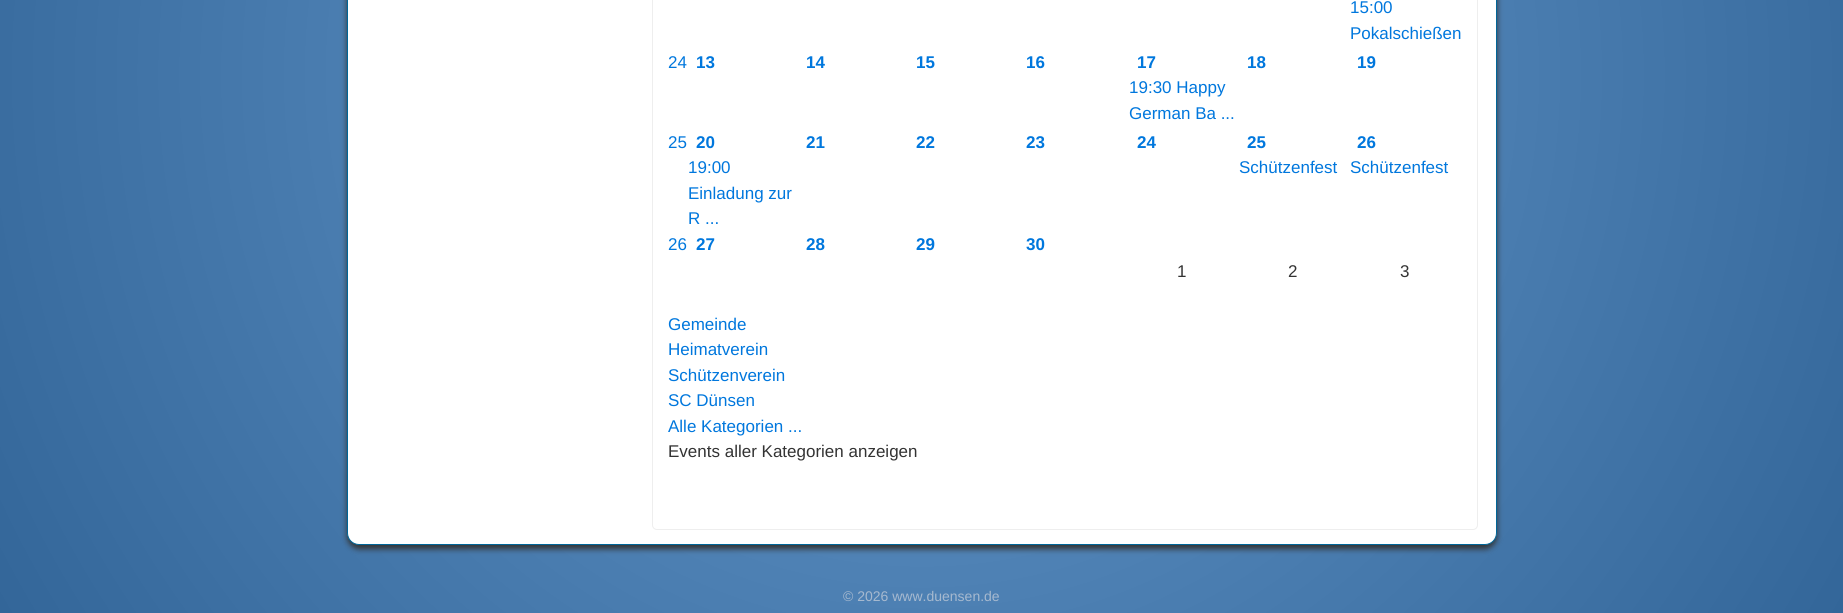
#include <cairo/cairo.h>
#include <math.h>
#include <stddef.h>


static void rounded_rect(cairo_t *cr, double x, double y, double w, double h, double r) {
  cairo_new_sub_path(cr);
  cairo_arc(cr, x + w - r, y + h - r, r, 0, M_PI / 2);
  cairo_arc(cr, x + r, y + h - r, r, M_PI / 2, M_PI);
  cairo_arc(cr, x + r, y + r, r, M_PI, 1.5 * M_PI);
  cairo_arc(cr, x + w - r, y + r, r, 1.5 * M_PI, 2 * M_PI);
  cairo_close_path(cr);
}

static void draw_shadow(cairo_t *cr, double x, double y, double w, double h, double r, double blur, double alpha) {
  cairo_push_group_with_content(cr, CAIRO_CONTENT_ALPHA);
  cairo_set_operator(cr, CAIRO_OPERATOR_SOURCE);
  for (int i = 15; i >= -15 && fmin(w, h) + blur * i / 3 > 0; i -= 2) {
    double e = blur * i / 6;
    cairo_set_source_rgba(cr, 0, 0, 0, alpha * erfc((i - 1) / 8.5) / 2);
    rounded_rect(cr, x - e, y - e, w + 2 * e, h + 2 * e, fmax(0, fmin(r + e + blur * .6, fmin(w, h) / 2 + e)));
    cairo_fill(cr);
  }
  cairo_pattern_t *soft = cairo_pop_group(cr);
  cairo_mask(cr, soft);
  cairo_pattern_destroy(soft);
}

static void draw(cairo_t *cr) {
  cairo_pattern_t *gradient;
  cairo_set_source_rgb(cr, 1, 1, 1);
  cairo_paint(cr);
  gradient = cairo_pattern_create_radial(922, 75, 0, 922, 75, 1067);
  cairo_pattern_add_color_stop_rgba(gradient, 0, 102 / 255.0, 153 / 255.0, 204 / 255.0, 1);
  cairo_pattern_add_color_stop_rgba(gradient, 1, 51 / 255.0, 102 / 255.0, 153 / 255.0, 1);
  cairo_set_source(cr, gradient);
  cairo_pattern_destroy(gradient);
  cairo_rectangle(cr, 0, 0, 1843, 613);
  cairo_fill(cr);
  cairo_set_source_rgb(cr, 51 / 255.0, 51 / 255.0, 51 / 255.0);
  draw_shadow(cr, 347, -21, 1150, 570, 12, 3, 1);
  cairo_set_source_rgb(cr, 1, 1, 1);
  rounded_rect(cr, 347.5, -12.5, 1149, 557, 11.5);
  cairo_fill_preserve(cr);
  cairo_set_source_rgb(cr, 0, 102 / 255.0, 153 / 255.0);
  cairo_set_line_width(cr, 1);
  cairo_stroke(cr);
  rounded_rect(cr, 652.5, -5.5, 825, 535, 4.5);
  cairo_set_source_rgb(cr, 238 / 255.0, 238 / 255.0, 238 / 255.0);
  cairo_stroke(cr);
  cairo_select_font_face(cr, "Liberation Sans", CAIRO_FONT_SLANT_NORMAL, CAIRO_FONT_WEIGHT_NORMAL);
  cairo_set_font_size(cr, 17);
  cairo_set_source_rgb(cr, 0, 119 / 255.0, 221 / 255.0);
  cairo_move_to(cr, 1350, 13);
  cairo_show_text(cr, "15:00");
  cairo_move_to(cr, 1350, 39);
  cairo_show_text(cr, "Pokalschießen");
  cairo_move_to(cr, 668, 68);
  cairo_show_text(cr, "24");
  cairo_select_font_face(cr, "Liberation Sans", CAIRO_FONT_SLANT_NORMAL, CAIRO_FONT_WEIGHT_BOLD);
  cairo_move_to(cr, 696, 68);
  cairo_show_text(cr, "13");
  cairo_move_to(cr, 806, 68);
  cairo_show_text(cr, "14");
  cairo_move_to(cr, 916, 68);
  cairo_show_text(cr, "15");
  cairo_move_to(cr, 1026, 68);
  cairo_show_text(cr, "16");
  cairo_move_to(cr, 1137, 68);
  cairo_show_text(cr, "17");
  cairo_select_font_face(cr, "Liberation Sans", CAIRO_FONT_SLANT_NORMAL, CAIRO_FONT_WEIGHT_NORMAL);
  cairo_move_to(cr, 1129, 93);
  cairo_show_text(cr, "19:30 Happy");
  cairo_move_to(cr, 1129, 119);
  cairo_show_text(cr, "German Ba ...");
  cairo_select_font_face(cr, "Liberation Sans", CAIRO_FONT_SLANT_NORMAL, CAIRO_FONT_WEIGHT_BOLD);
  cairo_move_to(cr, 1247, 68);
  cairo_show_text(cr, "18");
  cairo_move_to(cr, 1357, 68);
  cairo_show_text(cr, "19");
  cairo_select_font_face(cr, "Liberation Sans", CAIRO_FONT_SLANT_NORMAL, CAIRO_FONT_WEIGHT_NORMAL);
  cairo_move_to(cr, 668, 148);
  cairo_show_text(cr, "25");
  cairo_select_font_face(cr, "Liberation Sans", CAIRO_FONT_SLANT_NORMAL, CAIRO_FONT_WEIGHT_BOLD);
  cairo_move_to(cr, 696, 148);
  cairo_show_text(cr, "20");
  cairo_select_font_face(cr, "Liberation Sans", CAIRO_FONT_SLANT_NORMAL, CAIRO_FONT_WEIGHT_NORMAL);
  cairo_move_to(cr, 688, 173);
  cairo_show_text(cr, "19:00");
  cairo_move_to(cr, 688, 199);
  cairo_show_text(cr, "Einladung zur");
  cairo_move_to(cr, 688, 224);
  cairo_show_text(cr, "R ...");
  cairo_select_font_face(cr, "Liberation Sans", CAIRO_FONT_SLANT_NORMAL, CAIRO_FONT_WEIGHT_BOLD);
  cairo_move_to(cr, 806, 148);
  cairo_show_text(cr, "21");
  cairo_move_to(cr, 916, 148);
  cairo_show_text(cr, "22");
  cairo_move_to(cr, 1026, 148);
  cairo_show_text(cr, "23");
  cairo_move_to(cr, 1137, 148);
  cairo_show_text(cr, "24");
  cairo_move_to(cr, 1247, 148);
  cairo_show_text(cr, "25");
  cairo_select_font_face(cr, "Liberation Sans", CAIRO_FONT_SLANT_NORMAL, CAIRO_FONT_WEIGHT_NORMAL);
  cairo_move_to(cr, 1239, 173);
  cairo_show_text(cr, "Schützenfest");
  cairo_select_font_face(cr, "Liberation Sans", CAIRO_FONT_SLANT_NORMAL, CAIRO_FONT_WEIGHT_BOLD);
  cairo_move_to(cr, 1357, 148);
  cairo_show_text(cr, "26");
  cairo_select_font_face(cr, "Liberation Sans", CAIRO_FONT_SLANT_NORMAL, CAIRO_FONT_WEIGHT_NORMAL);
  cairo_move_to(cr, 1350, 173);
  cairo_show_text(cr, "Schützenfest");
  cairo_move_to(cr, 668, 250);
  cairo_show_text(cr, "26");
  cairo_select_font_face(cr, "Liberation Sans", CAIRO_FONT_SLANT_NORMAL, CAIRO_FONT_WEIGHT_BOLD);
  cairo_move_to(cr, 696, 250);
  cairo_show_text(cr, "27");
  cairo_move_to(cr, 806, 250);
  cairo_show_text(cr, "28");
  cairo_move_to(cr, 916, 250);
  cairo_show_text(cr, "29");
  cairo_move_to(cr, 1026, 250);
  cairo_show_text(cr, "30");
  cairo_select_font_face(cr, "Liberation Sans", CAIRO_FONT_SLANT_NORMAL, CAIRO_FONT_WEIGHT_NORMAL);
  cairo_set_source_rgb(cr, 51 / 255.0, 51 / 255.0, 51 / 255.0);
  cairo_move_to(cr, 1177, 277);
  cairo_show_text(cr, "1");
  cairo_move_to(cr, 1288, 277);
  cairo_show_text(cr, "2");
  cairo_move_to(cr, 1400, 277);
  cairo_show_text(cr, "3");
  cairo_set_source_rgb(cr, 0, 119 / 255.0, 221 / 255.0);
  cairo_move_to(cr, 668, 330);
  cairo_show_text(cr, "Gemeinde");
  cairo_move_to(cr, 668, 355);
  cairo_show_text(cr, "Heimatverein");
  cairo_move_to(cr, 668, 381);
  cairo_show_text(cr, "Schützenverein");
  cairo_move_to(cr, 668, 406);
  cairo_show_text(cr, "SC Dünsen");
  cairo_move_to(cr, 668, 432);
  cairo_show_text(cr, "Alle Kategorien ...");
  cairo_set_source_rgb(cr, 51 / 255.0, 51 / 255.0, 51 / 255.0);
  cairo_move_to(cr, 668, 457);
  cairo_show_text(cr, "Events aller Kategorien anzeigen");
  cairo_set_font_size(cr, 14);
  cairo_set_source_rgb(cr, 166 / 255.0, 185 / 255.0, 207 / 255.0);
  cairo_move_to(cr, 843, 601);
  cairo_show_text(cr, "© 2026 www.duensen.de");
}

int main(void) {
  cairo_surface_t *surface = cairo_image_surface_create(CAIRO_FORMAT_RGB24, 1843, 613);
  cairo_t *cr = cairo_create(surface);
  cairo_font_options_t *options = cairo_font_options_create();
  cairo_font_options_set_hint_metrics(options, CAIRO_HINT_METRICS_OFF);
  cairo_font_options_set_hint_style(options, CAIRO_HINT_STYLE_NONE);
  cairo_set_font_options(cr, options);
  cairo_set_miter_limit(cr, 4);
  draw(cr);
  cairo_surface_write_to_png(surface, "out.png");
  cairo_font_options_destroy(options);
  cairo_destroy(cr);
  cairo_surface_destroy(surface);
  return 0;
}
